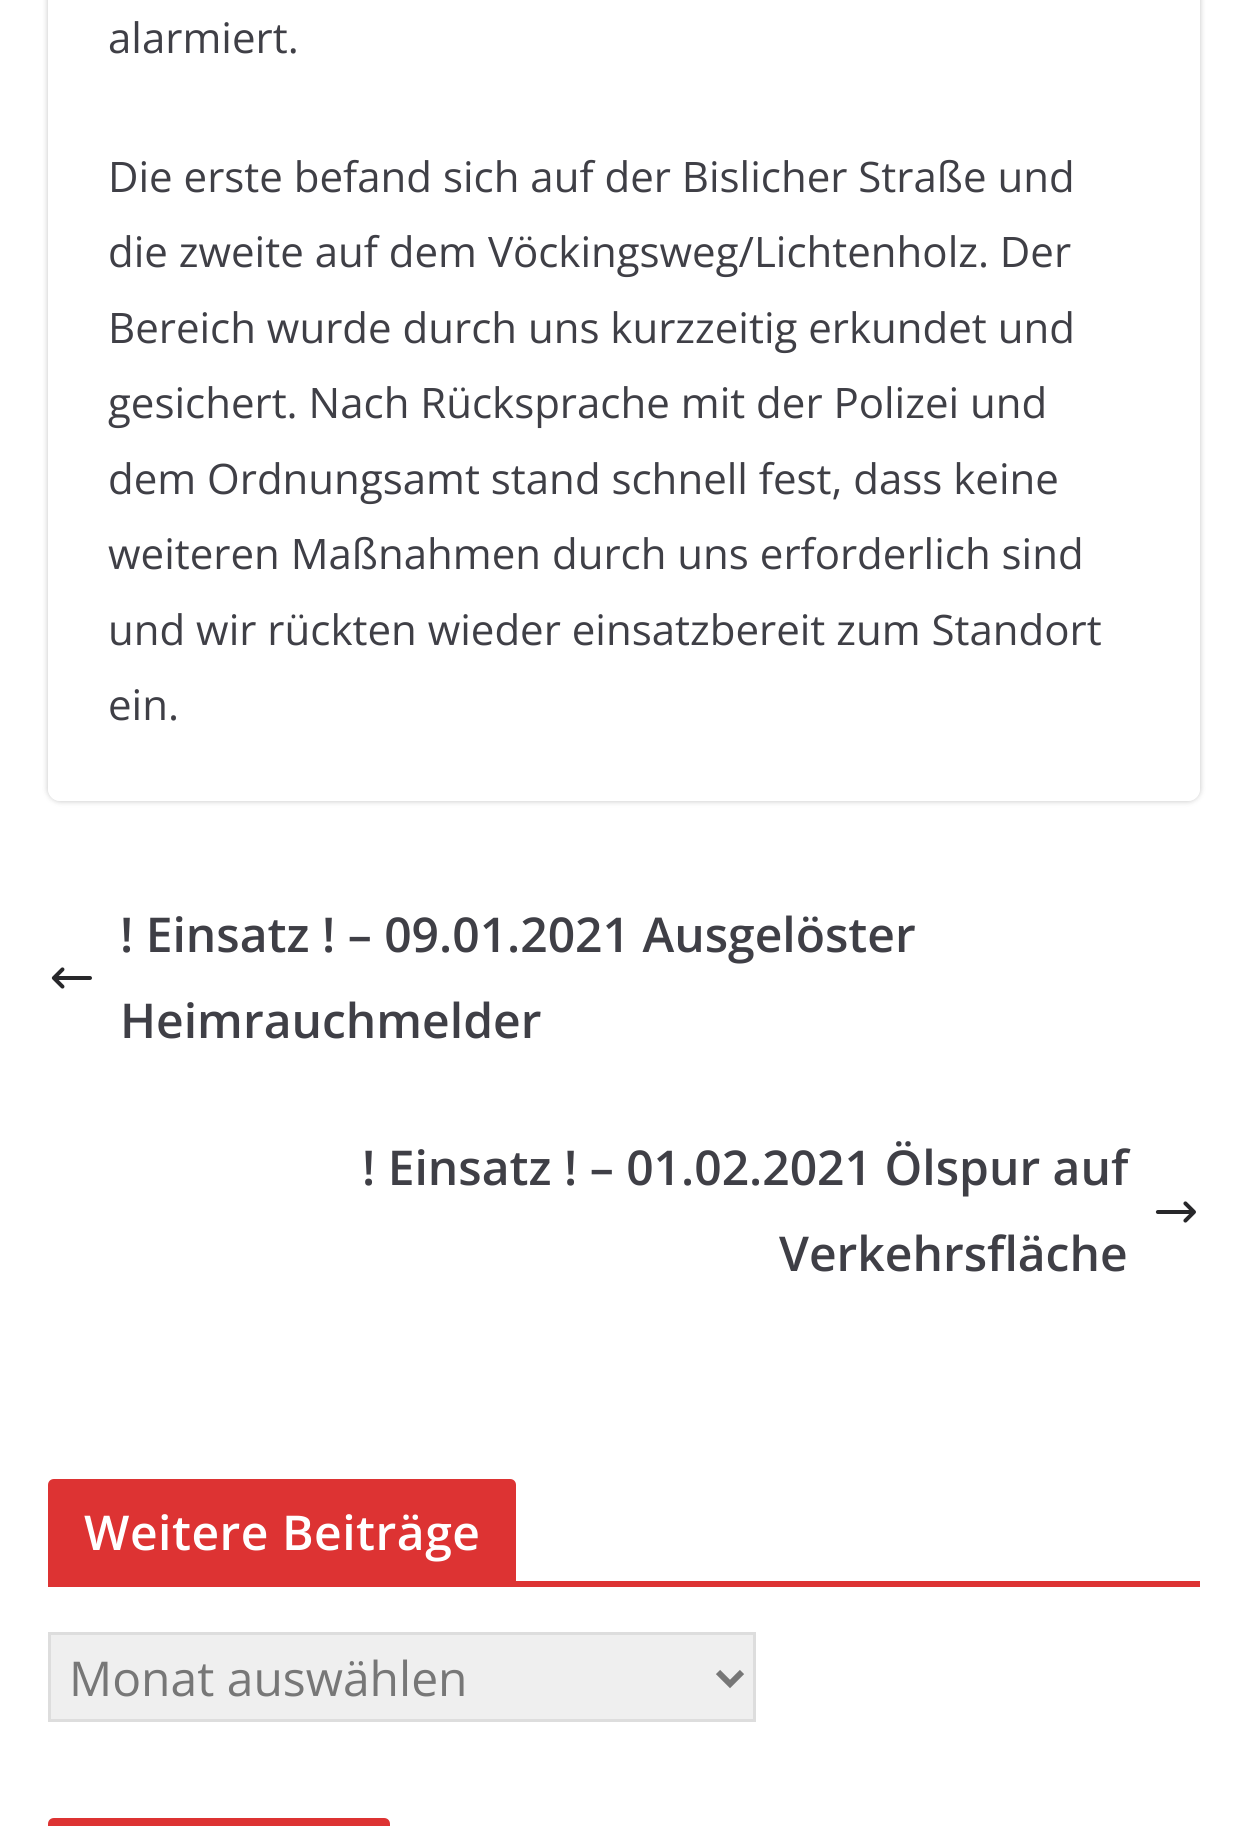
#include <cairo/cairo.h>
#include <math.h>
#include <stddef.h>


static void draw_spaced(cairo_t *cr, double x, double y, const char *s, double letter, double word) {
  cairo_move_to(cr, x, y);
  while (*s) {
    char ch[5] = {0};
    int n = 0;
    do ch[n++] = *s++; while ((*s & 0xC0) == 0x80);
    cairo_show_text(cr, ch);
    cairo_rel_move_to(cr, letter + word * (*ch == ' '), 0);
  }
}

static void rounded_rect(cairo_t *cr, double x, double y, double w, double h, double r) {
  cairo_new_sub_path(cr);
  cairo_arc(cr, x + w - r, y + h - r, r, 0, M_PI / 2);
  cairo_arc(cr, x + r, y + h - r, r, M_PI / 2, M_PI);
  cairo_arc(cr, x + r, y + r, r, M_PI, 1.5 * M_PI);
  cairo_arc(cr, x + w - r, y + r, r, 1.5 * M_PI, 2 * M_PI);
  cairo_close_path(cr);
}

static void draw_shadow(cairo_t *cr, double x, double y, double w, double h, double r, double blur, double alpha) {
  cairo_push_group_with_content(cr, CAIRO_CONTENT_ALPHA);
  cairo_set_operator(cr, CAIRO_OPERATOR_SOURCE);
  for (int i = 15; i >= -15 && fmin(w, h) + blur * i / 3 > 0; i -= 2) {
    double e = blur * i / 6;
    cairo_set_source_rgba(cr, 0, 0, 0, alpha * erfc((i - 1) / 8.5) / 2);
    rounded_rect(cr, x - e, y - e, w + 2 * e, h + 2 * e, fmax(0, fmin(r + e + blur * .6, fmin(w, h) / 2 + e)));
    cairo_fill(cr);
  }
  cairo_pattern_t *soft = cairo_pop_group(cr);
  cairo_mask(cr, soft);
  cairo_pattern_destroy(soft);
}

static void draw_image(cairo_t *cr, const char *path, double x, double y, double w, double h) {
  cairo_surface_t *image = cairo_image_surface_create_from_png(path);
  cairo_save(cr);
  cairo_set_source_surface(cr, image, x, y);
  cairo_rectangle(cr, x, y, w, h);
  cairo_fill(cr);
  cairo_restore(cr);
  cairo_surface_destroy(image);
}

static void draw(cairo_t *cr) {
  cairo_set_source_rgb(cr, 1, 1, 1);
  cairo_paint(cr);
  cairo_save(cr);
  cairo_set_fill_rule(cr, CAIRO_FILL_RULE_EVEN_ODD);
  cairo_new_path(cr);
  cairo_move_to(cr, 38, 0);
  cairo_line_to(cr, 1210, 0);
  cairo_line_to(cr, 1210, 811);
  cairo_line_to(cr, 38, 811);
  cairo_close_path(cr);
  cairo_move_to(cr, 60, -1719);
  cairo_line_to(cr, 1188, -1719);
  cairo_curve_to(cr, 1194.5, -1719, 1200, -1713.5, 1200, -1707);
  cairo_line_to(cr, 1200, 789);
  cairo_curve_to(cr, 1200, 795.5, 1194.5, 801, 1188, 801);
  cairo_line_to(cr, 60, 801);
  cairo_curve_to(cr, 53.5, 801, 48, 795.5, 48, 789);
  cairo_line_to(cr, 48, -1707);
  cairo_curve_to(cr, 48, -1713.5, 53.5, -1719, 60, -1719);
  cairo_close_path(cr);
  cairo_clip(cr);
  cairo_set_source_rgb(cr, 0, 0, 0);
  draw_shadow(cr, 48, -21, 1152, 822, 12, 3, 0.24);
  cairo_restore(cr);
  draw_image(cr, "images/1.png", 51, 967, 41, 22);
  draw_image(cr, "images/2.png", 1155, 1201, 41, 22);
  cairo_set_source_rgb(cr, 221 / 255.0, 51 / 255.0, 51 / 255.0);
  cairo_rectangle(cr, 48, 1581, 1152, 6);
  cairo_fill(cr);
  cairo_new_path(cr);
  cairo_move_to(cr, 54, 1479);
  cairo_line_to(cr, 510, 1479);
  cairo_curve_to(cr, 513.5, 1479, 516, 1481.5, 516, 1485);
  cairo_line_to(cr, 516, 1581);
  cairo_line_to(cr, 48, 1581);
  cairo_line_to(cr, 48, 1485);
  cairo_curve_to(cr, 48, 1481.5, 50.5, 1479, 54, 1479);
  cairo_close_path(cr);
  cairo_fill(cr);
  cairo_set_source_rgb(cr, 239 / 255.0, 239 / 255.0, 239 / 255.0);
  cairo_rectangle(cr, 49.5, 1633.5, 705, 87);
  cairo_fill_preserve(cr);
  cairo_set_source_rgb(cr, 221 / 255.0, 221 / 255.0, 221 / 255.0);
  cairo_set_line_width(cr, 3);
  cairo_stroke(cr);
  cairo_new_path(cr);
  cairo_move_to(cr, 718, 1672);
  cairo_line_to(cr, 730, 1684);
  cairo_line_to(cr, 742, 1672);
  cairo_set_source_rgb(cr, 119 / 255.0, 119 / 255.0, 119 / 255.0);
  cairo_set_line_width(cr, 6);
  cairo_stroke(cr);
  cairo_set_source_rgb(cr, 221 / 255.0, 51 / 255.0, 51 / 255.0);
  cairo_new_path(cr);
  cairo_move_to(cr, 54, 1818);
  cairo_line_to(cr, 384, 1818);
  cairo_curve_to(cr, 387.5, 1818, 390, 1820.5, 390, 1824);
  cairo_line_to(cr, 390, 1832);
  cairo_line_to(cr, 48, 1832);
  cairo_line_to(cr, 48, 1824);
  cairo_curve_to(cr, 48, 1820.5, 50.5, 1818, 54, 1818);
  cairo_close_path(cr);
  cairo_fill(cr);
  cairo_select_font_face(cr, "Open Sans", CAIRO_FONT_SLANT_NORMAL, CAIRO_FONT_WEIGHT_NORMAL);
  cairo_set_font_size(cr, 42);
  cairo_set_source_rgb(cr, 63 / 255.0, 63 / 255.0, 70 / 255.0);
  cairo_move_to(cr, 108, 53);
  cairo_show_text(cr, "alarmiert.");
  cairo_move_to(cr, 108, 192);
  cairo_show_text(cr, "Die erste befand sich auf der Bislicher Straße und");
  cairo_move_to(cr, 108, 267);
  cairo_show_text(cr, "die zweite auf dem Vöckingsweg/Lichtenholz. Der");
  cairo_move_to(cr, 108, 343);
  cairo_show_text(cr, "Bereich wurde durch uns kurzzeitig erkundet und");
  cairo_move_to(cr, 108, 418);
  cairo_show_text(cr, "gesichert. Nach Rücksprache mit der Polizei und");
  cairo_move_to(cr, 108, 494);
  cairo_show_text(cr, "dem Ordnungsamt stand schnell fest, dass keine");
  cairo_move_to(cr, 108, 569);
  cairo_show_text(cr, "weiteren Maßnahmen durch uns erforderlich sind");
  cairo_move_to(cr, 108, 645);
  cairo_show_text(cr, "und wir rückten wieder einsatzbereit zum Standort");
  cairo_move_to(cr, 108, 720);
  cairo_show_text(cr, "ein.");
  cairo_select_font_face(cr, "Open Sans SemiBold", CAIRO_FONT_SLANT_NORMAL, CAIRO_FONT_WEIGHT_NORMAL);
  cairo_set_font_size(cr, 48);
  cairo_move_to(cr, 120, 952);
  cairo_show_text(cr, "! Einsatz ! – 09.01.2021 Ausgelöster");
  cairo_move_to(cr, 120, 1038);
  cairo_show_text(cr, "Heimrauchmelder");
  cairo_move_to(cr, 362, 1185);
  cairo_show_text(cr, "! Einsatz ! – 01.02.2021 Ölspur auf");
  cairo_move_to(cr, 779, 1271);
  cairo_show_text(cr, "Verkehrsfläche");
  cairo_set_source_rgb(cr, 1, 1, 1);
  draw_spaced(cr, 84, 1550, "Weitere Beiträge", 0.5, 0);
  cairo_select_font_face(cr, "Open Sans", CAIRO_FONT_SLANT_NORMAL, CAIRO_FONT_WEIGHT_NORMAL);
  cairo_set_source_rgb(cr, 119 / 255.0, 119 / 255.0, 119 / 255.0);
  cairo_move_to(cr, 69, 1696);
  cairo_show_text(cr, "Monat auswählen");
}

int main(void) {
  cairo_surface_t *surface = cairo_image_surface_create(CAIRO_FORMAT_RGB24, 1247, 1826);
  cairo_t *cr = cairo_create(surface);
  cairo_font_options_t *options = cairo_font_options_create();
  cairo_font_options_set_hint_metrics(options, CAIRO_HINT_METRICS_OFF);
  cairo_font_options_set_hint_style(options, CAIRO_HINT_STYLE_NONE);
  cairo_set_font_options(cr, options);
  cairo_set_miter_limit(cr, 4);
  draw(cr);
  cairo_surface_write_to_png(surface, "out.png");
  cairo_font_options_destroy(options);
  cairo_destroy(cr);
  cairo_surface_destroy(surface);
  return 0;
}
